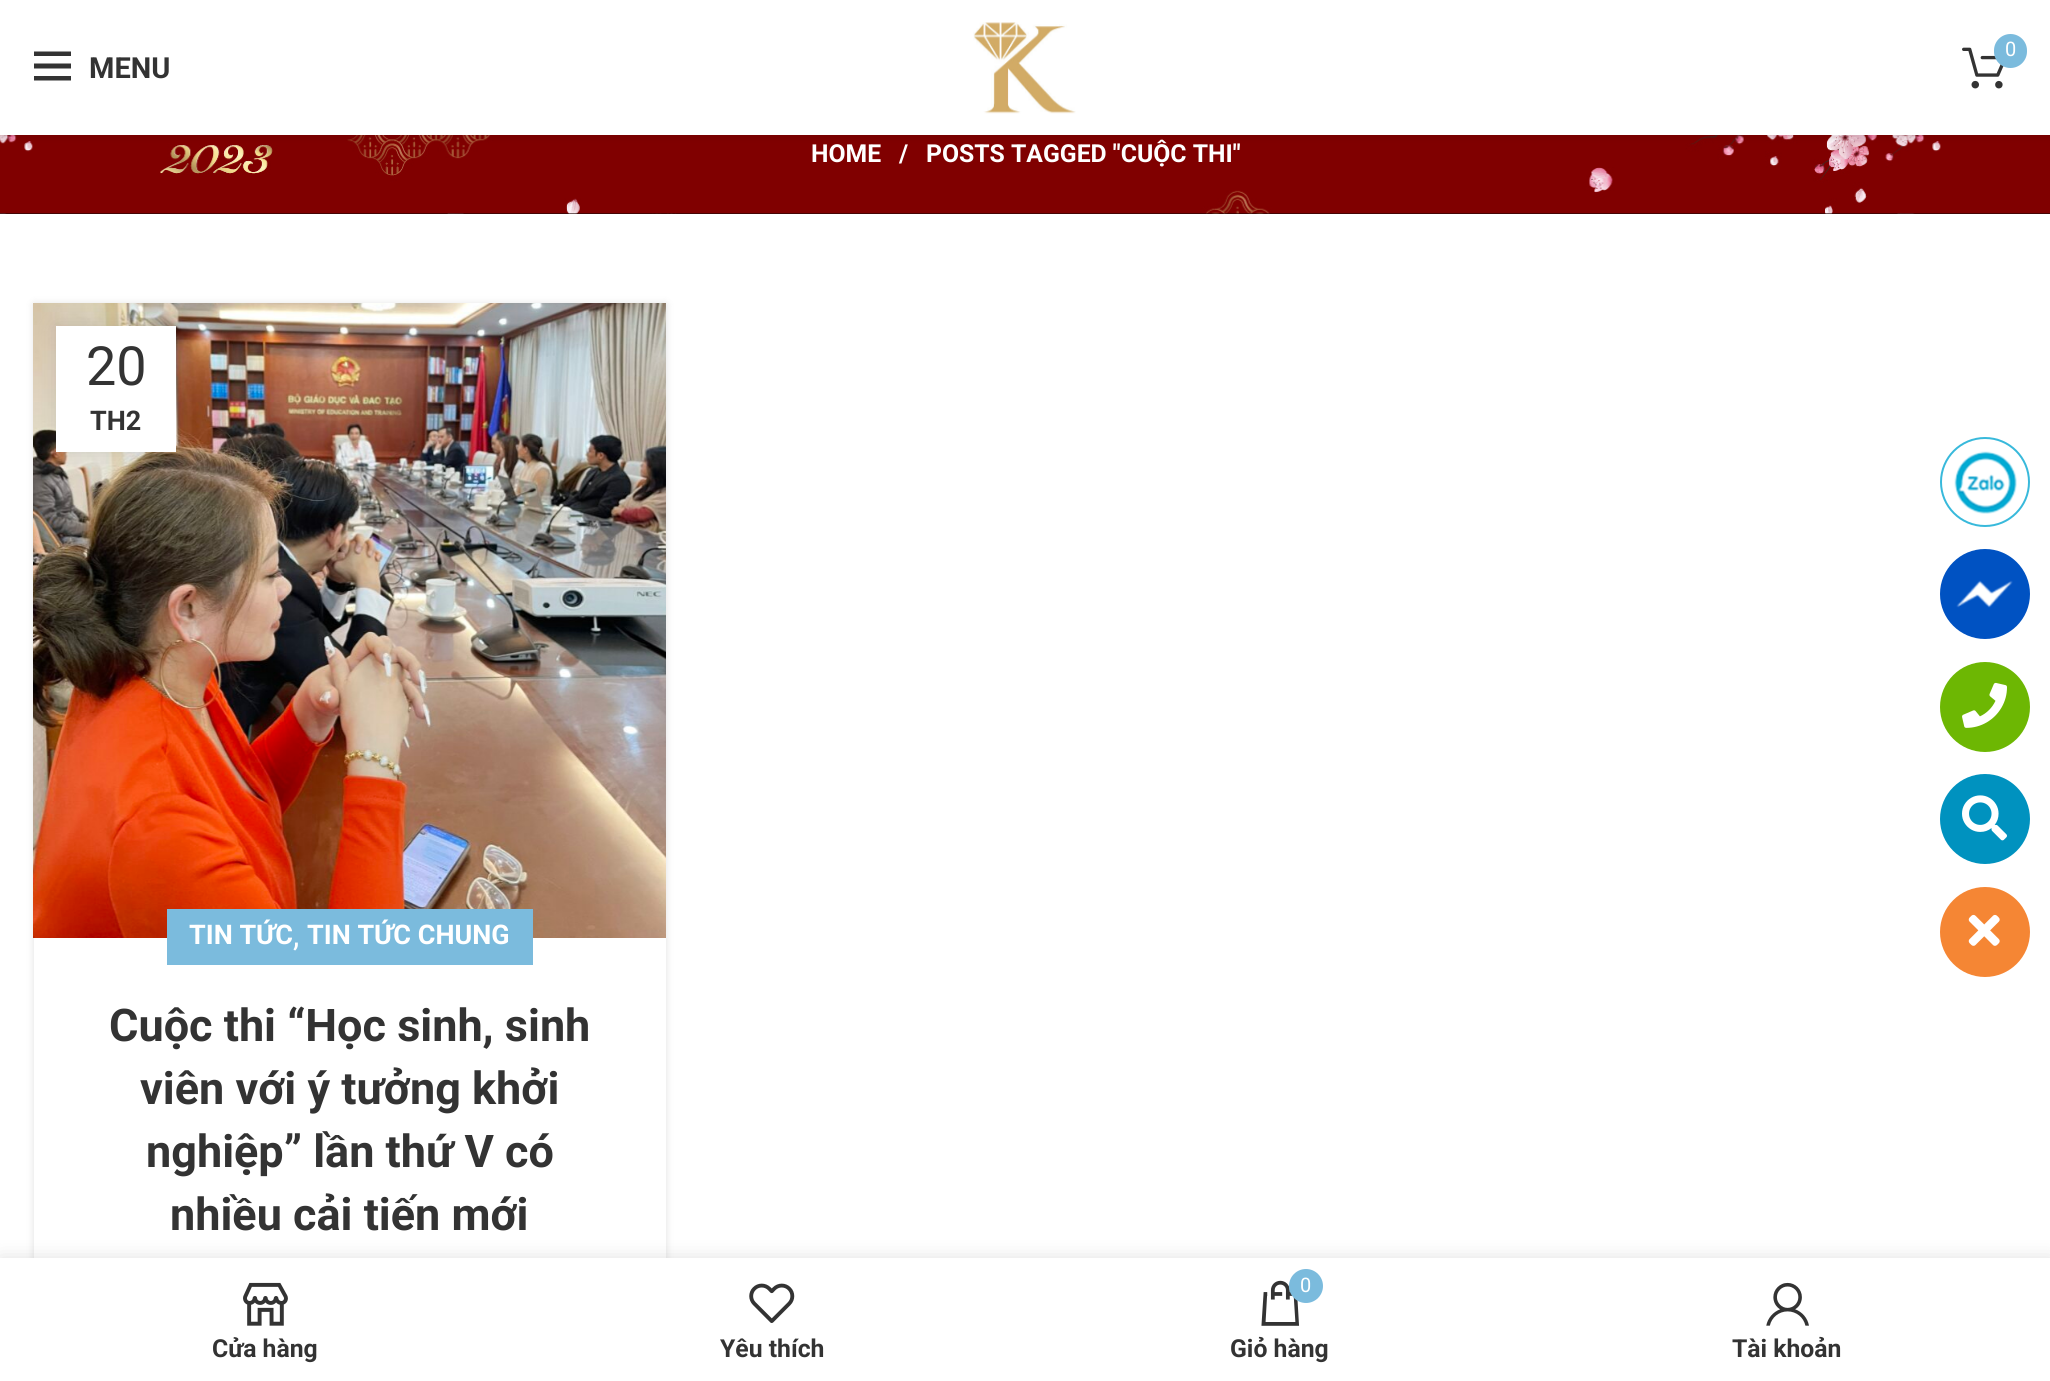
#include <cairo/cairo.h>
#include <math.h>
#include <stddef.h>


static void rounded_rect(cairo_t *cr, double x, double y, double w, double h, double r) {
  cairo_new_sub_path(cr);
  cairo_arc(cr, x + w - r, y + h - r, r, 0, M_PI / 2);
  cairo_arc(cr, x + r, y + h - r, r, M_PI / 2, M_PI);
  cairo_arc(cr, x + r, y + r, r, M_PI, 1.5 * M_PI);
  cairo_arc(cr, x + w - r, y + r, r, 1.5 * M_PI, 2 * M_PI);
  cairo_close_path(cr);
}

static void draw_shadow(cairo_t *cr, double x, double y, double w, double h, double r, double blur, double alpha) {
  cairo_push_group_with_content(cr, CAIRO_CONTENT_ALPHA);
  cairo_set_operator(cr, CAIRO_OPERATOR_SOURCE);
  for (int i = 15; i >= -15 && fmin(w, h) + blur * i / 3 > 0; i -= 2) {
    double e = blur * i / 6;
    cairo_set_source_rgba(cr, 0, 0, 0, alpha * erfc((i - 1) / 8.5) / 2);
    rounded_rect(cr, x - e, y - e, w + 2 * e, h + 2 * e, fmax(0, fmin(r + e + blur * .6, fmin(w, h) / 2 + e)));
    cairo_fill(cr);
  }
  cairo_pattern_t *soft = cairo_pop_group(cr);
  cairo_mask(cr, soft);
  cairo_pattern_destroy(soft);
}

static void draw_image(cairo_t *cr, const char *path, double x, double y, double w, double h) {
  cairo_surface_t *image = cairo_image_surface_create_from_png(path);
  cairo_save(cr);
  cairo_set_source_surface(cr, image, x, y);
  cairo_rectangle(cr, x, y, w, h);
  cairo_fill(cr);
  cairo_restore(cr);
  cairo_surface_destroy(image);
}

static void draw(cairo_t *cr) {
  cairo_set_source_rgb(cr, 1, 1, 1);
  cairo_paint(cr);
  cairo_set_source_rgb(cr, 10 / 255.0, 10 / 255.0, 10 / 255.0);
  cairo_rectangle(cr, 0, 213, 2050, 1);
  cairo_fill(cr);
  draw_image(cr, "images/3.png", 0, 135, 2050, 79);
  cairo_set_source_rgb(cr, 0, 0, 0);
  draw_shadow(cr, 0, 2, 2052, 135, 0, 3.5, 0.1);
  cairo_set_source_rgb(cr, 1, 1, 1);
  cairo_rectangle(cr, 0, 0, 2050, 135);
  cairo_fill(cr);
  draw_image(cr, "images/1.png", 973, 22, 103, 92);
  draw_image(cr, "images/2.png", 1962, 47, 42, 42);
  cairo_set_source_rgb(cr, 123 / 255.0, 187 / 255.0, 221 / 255.0);
  rounded_rect(cr, 1994, 34, 33, 34, 16.5);
  cairo_fill(cr);
  cairo_set_source_rgb(cr, 51 / 255.0, 51 / 255.0, 51 / 255.0);
  cairo_new_path(cr);
  cairo_move_to(cr, 34, 51.5);
  cairo_line_to(cr, 71, 51.5);
  cairo_line_to(cr, 71, 56);
  cairo_line_to(cr, 34, 56);
  cairo_close_path(cr);
  cairo_move_to(cr, 34, 63.5);
  cairo_line_to(cr, 71, 63.5);
  cairo_line_to(cr, 71, 68.5);
  cairo_line_to(cr, 34, 68.5);
  cairo_close_path(cr);
  cairo_move_to(cr, 34, 76);
  cairo_line_to(cr, 71, 76);
  cairo_line_to(cr, 71, 80.5);
  cairo_line_to(cr, 34, 80.5);
  cairo_close_path(cr);
  cairo_fill(cr);
  cairo_save(cr);
  cairo_set_fill_rule(cr, CAIRO_FILL_RULE_EVEN_ODD);
  cairo_new_path(cr);
  cairo_move_to(cr, 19, 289);
  cairo_line_to(cr, 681, 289);
  cairo_line_to(cr, 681, 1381);
  cairo_line_to(cr, 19, 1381);
  cairo_close_path(cr);
  cairo_move_to(cr, 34, 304);
  cairo_line_to(cr, 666, 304);
  cairo_line_to(cr, 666, 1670);
  cairo_line_to(cr, 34, 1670);
  cairo_close_path(cr);
  cairo_clip(cr);
  cairo_set_source_rgb(cr, 0, 0, 0);
  draw_shadow(cr, 34, 304, 632, 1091, 0, 4.5, 0.12);
  cairo_restore(cr);
  draw_image(cr, "images/4.png", 33, 303, 633, 635);
  cairo_set_source_rgb(cr, 0, 0, 0);
  draw_shadow(cr, 56, 326, 120, 126, 0, 10, 0.1);
  cairo_set_source_rgb(cr, 1, 1, 1);
  cairo_rectangle(cr, 56, 326, 120, 126);
  cairo_fill(cr);
  cairo_set_source_rgb(cr, 123 / 255.0, 187 / 255.0, 221 / 255.0);
  cairo_rectangle(cr, 167, 909, 366, 56);
  cairo_fill(cr);
  draw_image(cr, "images/5.png", 1954, 451, 63, 63);
  cairo_arc(cr, 1985, 482, 44, 0, 2 * M_PI);
  cairo_set_source_rgb(cr, 56 / 255.0, 185 / 255.0, 219 / 255.0);
  cairo_stroke(cr);
  cairo_set_source_rgb(cr, 0, 82 / 255.0, 194 / 255.0);
  cairo_arc(cr, 1985, 594, 45, 0, 2 * M_PI);
  cairo_fill(cr);
  draw_image(cr, "images/6.png", 1956, 580, 57, 28);
  cairo_set_source_rgb(cr, 109 / 255.0, 183 / 255.0, 3 / 255.0);
  cairo_arc(cr, 1985, 707, 45, 0, 2 * M_PI);
  cairo_fill(cr);
  draw_image(cr, "images/7.png", 1962, 682, 45, 46);
  cairo_set_source_rgb(cr, 0, 146 / 255.0, 191 / 255.0);
  cairo_arc(cr, 1985, 819, 45, 0, 2 * M_PI);
  cairo_fill(cr);
  draw_image(cr, "images/8.png", 1962, 795, 45, 46);
  cairo_set_source_rgb(cr, 245 / 255.0, 134 / 255.0, 52 / 255.0);
  cairo_arc(cr, 1985, 932, 45, 0, 2 * M_PI);
  cairo_fill(cr);
  draw_image(cr, "images/9.png", 1968, 914, 32, 32);
  cairo_set_source_rgb(cr, 0, 0, 0);
  draw_shadow(cr, 0, 1258, 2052, 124, 0, 10, 0.12);
  cairo_set_source_rgb(cr, 1, 1, 1);
  cairo_rectangle(cr, 0, 1258, 2050, 123);
  cairo_fill(cr);
  draw_image(cr, "images/10.png", 243, 1282, 45, 44);
  draw_image(cr, "images/11.png", 749, 1283, 46, 40);
  draw_image(cr, "images/12.png", 1261, 1280, 39, 46);
  cairo_set_source_rgb(cr, 123 / 255.0, 187 / 255.0, 221 / 255.0);
  cairo_arc(cr, 1306, 1286, 17, 0, 2 * M_PI);
  cairo_fill(cr);
  draw_image(cr, "images/13.png", 1766, 1282, 43, 44);
  cairo_select_font_face(cr, "Roboto", CAIRO_FONT_SLANT_NORMAL, CAIRO_FONT_WEIGHT_NORMAL);
  cairo_set_font_size(cr, 20);
  cairo_set_source_rgb(cr, 1, 1, 1);
  cairo_move_to(cr, 2005, 56);
  cairo_show_text(cr, "0");
  cairo_select_font_face(cr, "Roboto", CAIRO_FONT_SLANT_NORMAL, CAIRO_FONT_WEIGHT_BOLD);
  cairo_set_font_size(cr, 29);
  cairo_set_source_rgb(cr, 51 / 255.0, 51 / 255.0, 51 / 255.0);
  cairo_move_to(cr, 89, 78);
  cairo_show_text(cr, "MENU");
  cairo_set_font_size(cr, 24.75);
  cairo_set_source_rgb(cr, 1, 1, 1);
  cairo_move_to(cr, 811, 162);
  cairo_show_text(cr, "HOME");
  cairo_move_to(cr, 899, 162);
  cairo_show_text(cr, "/");
  cairo_move_to(cr, 926, 162);
  cairo_show_text(cr, "POSTS TAGGED \"CUỘC THI\"");
  cairo_select_font_face(cr, "Roboto", CAIRO_FONT_SLANT_NORMAL, CAIRO_FONT_WEIGHT_NORMAL);
  cairo_set_font_size(cr, 54);
  cairo_set_source_rgb(cr, 51 / 255.0, 51 / 255.0, 51 / 255.0);
  cairo_move_to(cr, 86, 385);
  cairo_show_text(cr, "20");
  cairo_select_font_face(cr, "Roboto", CAIRO_FONT_SLANT_NORMAL, CAIRO_FONT_WEIGHT_BOLD);
  cairo_set_font_size(cr, 27);
  cairo_move_to(cr, 90, 430);
  cairo_show_text(cr, "TH2");
  cairo_set_source_rgb(cr, 1, 1, 1);
  cairo_move_to(cr, 189, 944);
  cairo_show_text(cr, "TIN TỨC");
  cairo_move_to(cr, 307, 944);
  cairo_show_text(cr, "TIN TỨC CHUNG");
  cairo_select_font_face(cr, "Roboto", CAIRO_FONT_SLANT_NORMAL, CAIRO_FONT_WEIGHT_NORMAL);
  cairo_set_font_size(cr, 32);
  cairo_move_to(cr, 293, 946);
  cairo_show_text(cr, ",");
  cairo_select_font_face(cr, "Roboto", CAIRO_FONT_SLANT_NORMAL, CAIRO_FONT_WEIGHT_BOLD);
  cairo_set_font_size(cr, 45);
  cairo_set_source_rgb(cr, 51 / 255.0, 51 / 255.0, 51 / 255.0);
  cairo_move_to(cr, 109, 1041);
  cairo_show_text(cr, "Cuộc thi “Học sinh, sinh");
  cairo_move_to(cr, 140, 1104);
  cairo_show_text(cr, "viên với ý tưởng khởi");
  cairo_move_to(cr, 146, 1167);
  cairo_show_text(cr, "nghiệp” lần thứ V có");
  cairo_move_to(cr, 170, 1230);
  cairo_show_text(cr, "nhiều cải tiến mới");
  cairo_set_font_size(cr, 24.75);
  cairo_move_to(cr, 212, 1357);
  cairo_show_text(cr, "Cửa hàng");
  cairo_move_to(cr, 720, 1357);
  cairo_show_text(cr, "Yêu thích");
  cairo_select_font_face(cr, "Roboto", CAIRO_FONT_SLANT_NORMAL, CAIRO_FONT_WEIGHT_NORMAL);
  cairo_set_font_size(cr, 20);
  cairo_set_source_rgb(cr, 1, 1, 1);
  cairo_move_to(cr, 1300, 1292);
  cairo_show_text(cr, "0");
  cairo_select_font_face(cr, "Roboto", CAIRO_FONT_SLANT_NORMAL, CAIRO_FONT_WEIGHT_BOLD);
  cairo_set_font_size(cr, 24.75);
  cairo_set_source_rgb(cr, 51 / 255.0, 51 / 255.0, 51 / 255.0);
  cairo_move_to(cr, 1230, 1357);
  cairo_show_text(cr, "Giỏ hàng");
  cairo_move_to(cr, 1732, 1357);
  cairo_show_text(cr, "Tài khoản");
}

int main(void) {
  cairo_surface_t *surface = cairo_image_surface_create(CAIRO_FORMAT_RGB24, 2050, 1381);
  cairo_t *cr = cairo_create(surface);
  cairo_font_options_t *options = cairo_font_options_create();
  cairo_font_options_set_hint_metrics(options, CAIRO_HINT_METRICS_OFF);
  cairo_font_options_set_hint_style(options, CAIRO_HINT_STYLE_NONE);
  cairo_set_font_options(cr, options);
  cairo_set_miter_limit(cr, 4);
  draw(cr);
  cairo_surface_write_to_png(surface, "out.png");
  cairo_font_options_destroy(options);
  cairo_destroy(cr);
  cairo_surface_destroy(surface);
  return 0;
}
